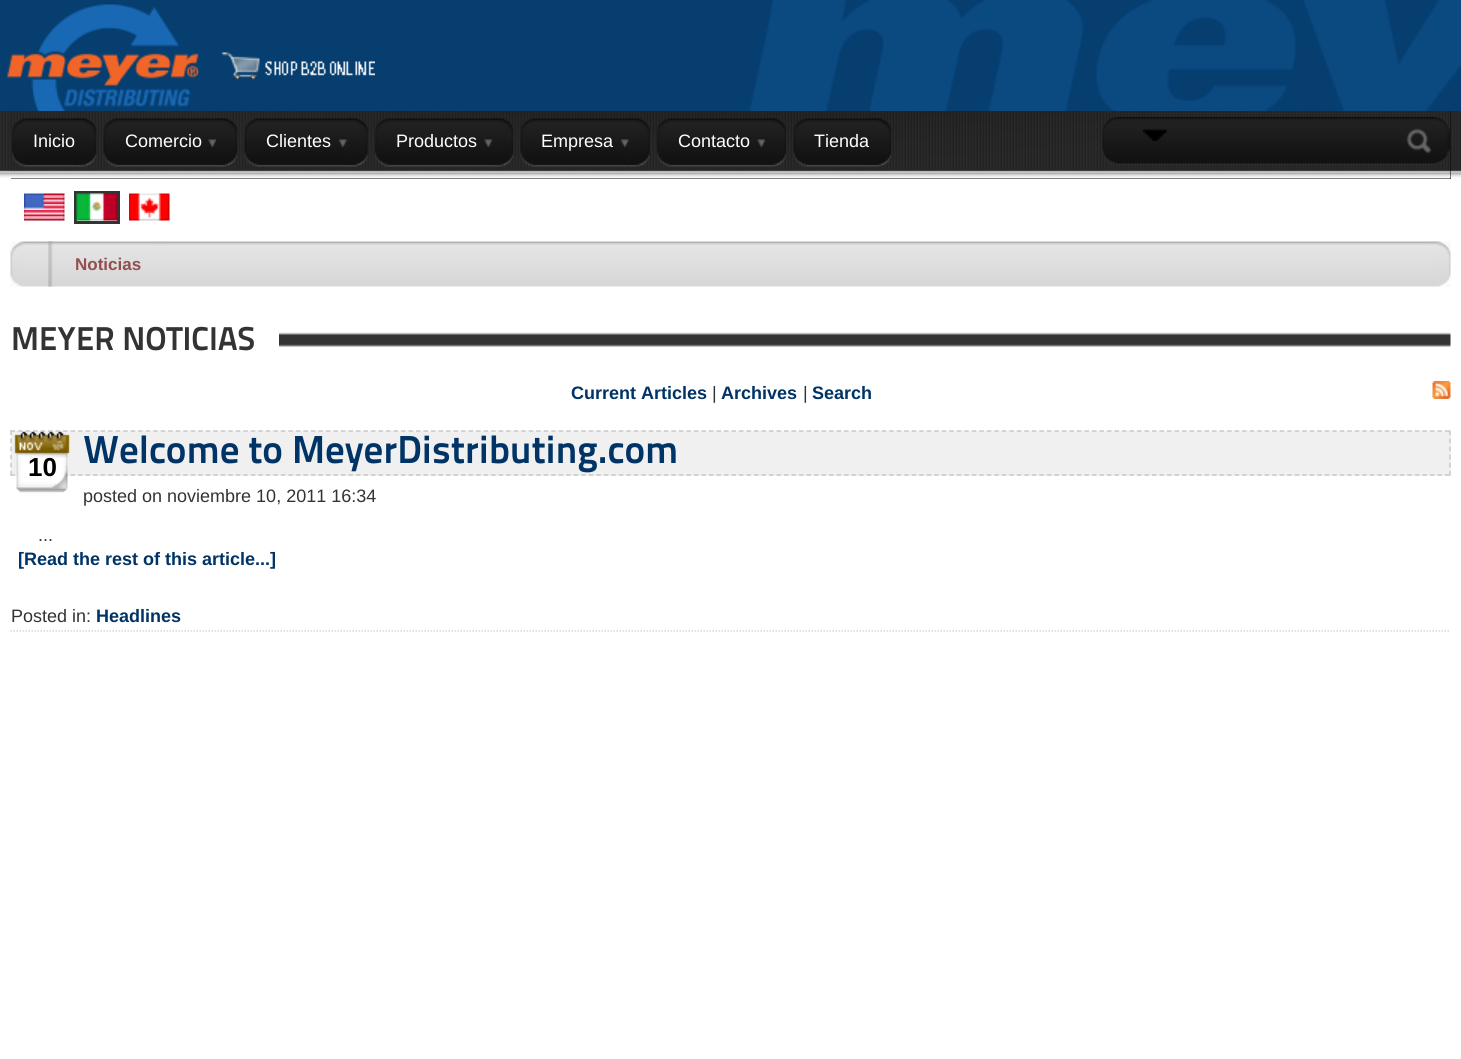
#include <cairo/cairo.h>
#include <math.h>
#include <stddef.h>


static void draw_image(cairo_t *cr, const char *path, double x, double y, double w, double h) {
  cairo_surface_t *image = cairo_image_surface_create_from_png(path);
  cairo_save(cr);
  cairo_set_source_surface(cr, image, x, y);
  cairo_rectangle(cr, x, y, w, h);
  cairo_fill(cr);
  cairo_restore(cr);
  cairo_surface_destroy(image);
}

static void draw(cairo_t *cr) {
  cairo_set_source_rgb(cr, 1, 1, 1);
  cairo_paint(cr);
  draw_image(cr, "images/1.png", 0, 0, 375, 111);
  cairo_set_source_rgb(cr, 6 / 255.0, 62 / 255.0, 112 / 255.0);
  cairo_rectangle(cr, 375, 0, 362, 111);
  cairo_fill(cr);
  draw_image(cr, "images/2.png", 737, 0, 724, 111);
  draw_image(cr, "images/3.png", 0, 111, 1461, 67);
  cairo_set_source_rgb(cr, 0, 0, 0);
  cairo_rectangle(cr, 11, 111, 1440, 68);
  cairo_fill(cr);
  draw_image(cr, "images/4.png", 10, 111, 1441, 68);
  draw_image(cr, "images/5.png", 75, 118, 22, 47);
  draw_image(cr, "images/6.png", 75, 118, 22, 49);
  draw_image(cr, "images/7.png", 12, 118, 63, 49);
  draw_image(cr, "images/8.png", 216, 118, 22, 47);
  draw_image(cr, "images/9.png", 216, 118, 22, 49);
  draw_image(cr, "images/10.png", 103, 118, 113, 49);
  draw_image(cr, "images/11.png", 208, 139, 8, 8);
  draw_image(cr, "images/12.png", 346, 118, 22, 47);
  draw_image(cr, "images/13.png", 346, 118, 22, 49);
  draw_image(cr, "images/14.png", 244, 118, 103, 49);
  draw_image(cr, "images/15.png", 339, 139, 8, 8);
  draw_image(cr, "images/16.png", 492, 118, 22, 47);
  draw_image(cr, "images/17.png", 492, 118, 21, 49);
  draw_image(cr, "images/18.png", 375, 118, 117, 49);
  draw_image(cr, "images/11.png", 484, 139, 8, 8);
  draw_image(cr, "images/19.png", 628, 118, 23, 47);
  draw_image(cr, "images/20.png", 628, 118, 22, 49);
  draw_image(cr, "images/21.png", 520, 118, 109, 49);
  draw_image(cr, "images/22.png", 621, 139, 8, 8);
  draw_image(cr, "images/23.png", 765, 118, 22, 47);
  draw_image(cr, "images/24.png", 765, 118, 21, 49);
  draw_image(cr, "images/25.png", 657, 118, 108, 49);
  draw_image(cr, "images/26.png", 757, 139, 8, 8);
  draw_image(cr, "images/27.png", 870, 118, 22, 47);
  draw_image(cr, "images/28.png", 870, 118, 21, 49);
  draw_image(cr, "images/29.png", 793, 118, 77, 49);
  draw_image(cr, "images/30.png", 1102, 117, 348, 48);
  draw_image(cr, "images/31.png", 1143, 129, 24, 12);
  draw_image(cr, "images/32.png", 24, 193, 41, 28);
  cairo_rectangle(cr, 75.5, 192.5, 43, 30);
  cairo_set_source_rgb(cr, 51 / 255.0, 51 / 255.0, 51 / 255.0);
  cairo_set_line_width(cr, 3);
  cairo_stroke(cr);
  draw_image(cr, "images/33.png", 76, 193, 41, 28);
  draw_image(cr, "images/34.png", 129, 193, 41, 28);
  draw_image(cr, "images/35.png", 10, 241, 1441, 46);
  draw_image(cr, "images/36.png", 48, 241, 5, 46);
  draw_image(cr, "images/37.png", 279, 332, 1172, 15);
  draw_image(cr, "images/38.png", 1432, 381, 19, 18);
  cairo_set_source_rgb(cr, 240 / 255.0, 240 / 255.0, 240 / 255.0);
  cairo_rectangle(cr, 11, 431, 1440, 45);
  cairo_fill(cr);
  cairo_new_path(cr);
  cairo_move_to(cr, 10.5, 431);
  cairo_line_to(cr, 1450.5, 431);
  cairo_set_source_rgb(cr, 200 / 255.0, 200 / 255.0, 200 / 255.0);
  cairo_set_line_width(cr, 1.5);
  cairo_set_dash(cr, (double[]){4.5, 3.01}, 2, 0);
  cairo_stroke(cr);
  cairo_new_path(cr);
  cairo_move_to(cr, 1450, 430.5);
  cairo_line_to(cr, 1450, 475.5);
  cairo_set_dash(cr, (double[]){4.5, 3.6}, 2, 0);
  cairo_stroke(cr);
  cairo_new_path(cr);
  cairo_move_to(cr, 10.5, 475);
  cairo_line_to(cr, 1450.5, 475);
  cairo_set_dash(cr, (double[]){4.5, 3.01}, 2, 0);
  cairo_stroke(cr);
  draw_image(cr, "images/39.png", 14, 431, 56, 62);
  cairo_new_path(cr);
  cairo_move_to(cr, 11, 430.5);
  cairo_line_to(cr, 11, 475.5);
  cairo_set_dash(cr, (double[]){4.5, 3.6}, 2, 0);
  cairo_stroke(cr);
  cairo_new_path(cr);
  cairo_move_to(cr, 10.5, 631);
  cairo_line_to(cr, 1450.5, 631);
  cairo_set_source_rgb(cr, 216 / 255.0, 216 / 255.0, 216 / 255.0);
  cairo_set_dash(cr, (double[]){1.5, 1.5}, 2, 0);
  cairo_stroke(cr);
  cairo_select_font_face(cr, "Liberation Sans", CAIRO_FONT_SLANT_NORMAL, CAIRO_FONT_WEIGHT_NORMAL);
  cairo_set_font_size(cr, 18);
  cairo_set_source_rgb(cr, 1, 1, 1);
  cairo_move_to(cr, 33, 147);
  cairo_show_text(cr, "Inicio");
  cairo_move_to(cr, 125, 147);
  cairo_show_text(cr, "Comercio");
  cairo_move_to(cr, 266, 147);
  cairo_show_text(cr, "Clientes");
  cairo_move_to(cr, 396, 147);
  cairo_show_text(cr, "Productos");
  cairo_move_to(cr, 541, 147);
  cairo_show_text(cr, "Empresa");
  cairo_move_to(cr, 678, 147);
  cairo_show_text(cr, "Contacto");
  cairo_move_to(cr, 814, 147);
  cairo_show_text(cr, "Tienda");
  cairo_select_font_face(cr, "Liberation Sans", CAIRO_FONT_SLANT_NORMAL, CAIRO_FONT_WEIGHT_BOLD);
  cairo_set_font_size(cr, 17);
  cairo_set_source_rgb(cr, 148 / 255.0, 78 / 255.0, 78 / 255.0);
  cairo_move_to(cr, 75, 270);
  cairo_show_text(cr, "Noticias");
  cairo_select_font_face(cr, "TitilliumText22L", CAIRO_FONT_SLANT_NORMAL, CAIRO_FONT_WEIGHT_BOLD);
  cairo_set_font_size(cr, 33);
  cairo_set_source_rgb(cr, 51 / 255.0, 51 / 255.0, 51 / 255.0);
  cairo_move_to(cr, 11, 350);
  cairo_show_text(cr, "MEYER NOTICIAS");
  cairo_select_font_face(cr, "Liberation Sans", CAIRO_FONT_SLANT_NORMAL, CAIRO_FONT_WEIGHT_BOLD);
  cairo_set_font_size(cr, 18);
  cairo_set_source_rgb(cr, 0, 51 / 255.0, 102 / 255.0);
  cairo_move_to(cr, 571, 399);
  cairo_show_text(cr, "Current Articles");
  cairo_select_font_face(cr, "Liberation Sans", CAIRO_FONT_SLANT_NORMAL, CAIRO_FONT_WEIGHT_NORMAL);
  cairo_set_source_rgb(cr, 51 / 255.0, 51 / 255.0, 51 / 255.0);
  cairo_move_to(cr, 712, 399);
  cairo_show_text(cr, "|");
  cairo_select_font_face(cr, "Liberation Sans", CAIRO_FONT_SLANT_NORMAL, CAIRO_FONT_WEIGHT_BOLD);
  cairo_set_source_rgb(cr, 0, 51 / 255.0, 102 / 255.0);
  cairo_move_to(cr, 721, 399);
  cairo_show_text(cr, "Archives");
  cairo_select_font_face(cr, "Liberation Sans", CAIRO_FONT_SLANT_NORMAL, CAIRO_FONT_WEIGHT_NORMAL);
  cairo_set_source_rgb(cr, 51 / 255.0, 51 / 255.0, 51 / 255.0);
  cairo_move_to(cr, 803, 399);
  cairo_show_text(cr, "|");
  cairo_select_font_face(cr, "Liberation Sans", CAIRO_FONT_SLANT_NORMAL, CAIRO_FONT_WEIGHT_BOLD);
  cairo_set_source_rgb(cr, 0, 51 / 255.0, 102 / 255.0);
  cairo_move_to(cr, 812, 399);
  cairo_show_text(cr, "Search");
  cairo_set_font_size(cr, 26);
  cairo_set_source_rgb(cr, 0, 0, 0);
  cairo_move_to(cr, 28, 476);
  cairo_show_text(cr, "10");
  cairo_select_font_face(cr, "TitilliumText22L", CAIRO_FONT_SLANT_NORMAL, CAIRO_FONT_WEIGHT_BOLD);
  cairo_set_font_size(cr, 39);
  cairo_set_source_rgb(cr, 0, 51 / 255.0, 102 / 255.0);
  cairo_move_to(cr, 83, 463);
  cairo_show_text(cr, "Welcome to MeyerDistributing.com");
  cairo_select_font_face(cr, "Liberation Sans", CAIRO_FONT_SLANT_NORMAL, CAIRO_FONT_WEIGHT_NORMAL);
  cairo_set_font_size(cr, 18);
  cairo_set_source_rgb(cr, 51 / 255.0, 51 / 255.0, 51 / 255.0);
  cairo_move_to(cr, 83, 502);
  cairo_show_text(cr, "posted on noviembre 10, 2011 16:34");
  cairo_move_to(cr, 38, 541);
  cairo_show_text(cr, "...");
  cairo_select_font_face(cr, "Liberation Sans", CAIRO_FONT_SLANT_NORMAL, CAIRO_FONT_WEIGHT_BOLD);
  cairo_set_source_rgb(cr, 0, 51 / 255.0, 102 / 255.0);
  cairo_move_to(cr, 18, 565);
  cairo_show_text(cr, "[Read the rest of this article...]");
  cairo_select_font_face(cr, "Liberation Sans", CAIRO_FONT_SLANT_NORMAL, CAIRO_FONT_WEIGHT_NORMAL);
  cairo_set_source_rgb(cr, 51 / 255.0, 51 / 255.0, 51 / 255.0);
  cairo_move_to(cr, 11, 622);
  cairo_show_text(cr, "Posted in:");
  cairo_select_font_face(cr, "Liberation Sans", CAIRO_FONT_SLANT_NORMAL, CAIRO_FONT_WEIGHT_BOLD);
  cairo_set_source_rgb(cr, 0, 51 / 255.0, 102 / 255.0);
  cairo_move_to(cr, 96, 622);
  cairo_show_text(cr, "Headlines");
}

int main(void) {
  cairo_surface_t *surface = cairo_image_surface_create(CAIRO_FORMAT_RGB24, 1461, 1059);
  cairo_t *cr = cairo_create(surface);
  cairo_font_options_t *options = cairo_font_options_create();
  cairo_font_options_set_hint_metrics(options, CAIRO_HINT_METRICS_OFF);
  cairo_font_options_set_hint_style(options, CAIRO_HINT_STYLE_NONE);
  cairo_set_font_options(cr, options);
  cairo_set_miter_limit(cr, 4);
  draw(cr);
  cairo_surface_write_to_png(surface, "out.png");
  cairo_font_options_destroy(options);
  cairo_destroy(cr);
  cairo_surface_destroy(surface);
  return 0;
}
